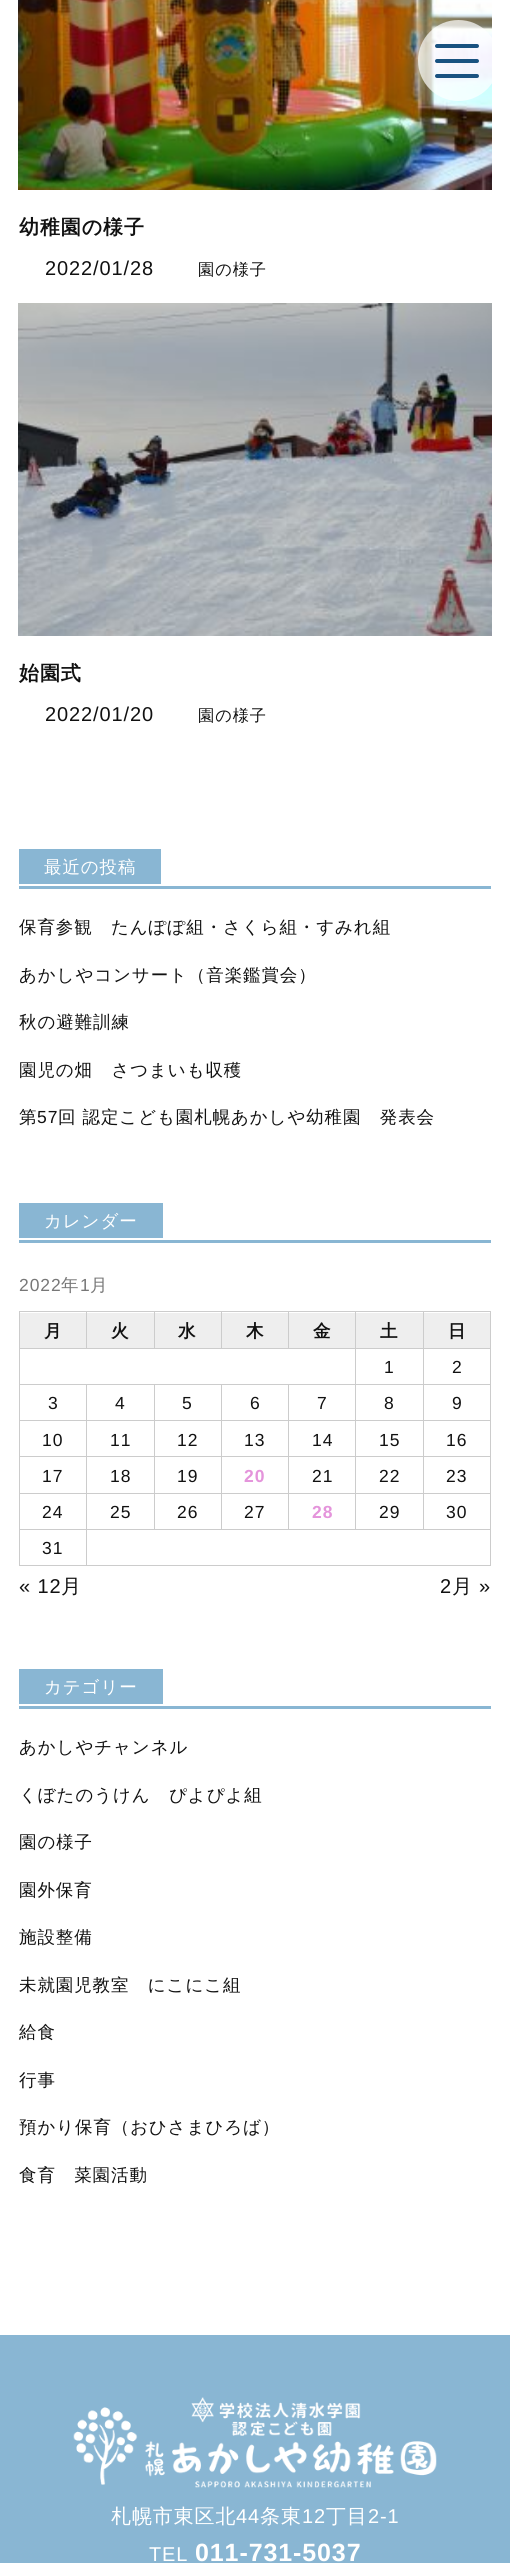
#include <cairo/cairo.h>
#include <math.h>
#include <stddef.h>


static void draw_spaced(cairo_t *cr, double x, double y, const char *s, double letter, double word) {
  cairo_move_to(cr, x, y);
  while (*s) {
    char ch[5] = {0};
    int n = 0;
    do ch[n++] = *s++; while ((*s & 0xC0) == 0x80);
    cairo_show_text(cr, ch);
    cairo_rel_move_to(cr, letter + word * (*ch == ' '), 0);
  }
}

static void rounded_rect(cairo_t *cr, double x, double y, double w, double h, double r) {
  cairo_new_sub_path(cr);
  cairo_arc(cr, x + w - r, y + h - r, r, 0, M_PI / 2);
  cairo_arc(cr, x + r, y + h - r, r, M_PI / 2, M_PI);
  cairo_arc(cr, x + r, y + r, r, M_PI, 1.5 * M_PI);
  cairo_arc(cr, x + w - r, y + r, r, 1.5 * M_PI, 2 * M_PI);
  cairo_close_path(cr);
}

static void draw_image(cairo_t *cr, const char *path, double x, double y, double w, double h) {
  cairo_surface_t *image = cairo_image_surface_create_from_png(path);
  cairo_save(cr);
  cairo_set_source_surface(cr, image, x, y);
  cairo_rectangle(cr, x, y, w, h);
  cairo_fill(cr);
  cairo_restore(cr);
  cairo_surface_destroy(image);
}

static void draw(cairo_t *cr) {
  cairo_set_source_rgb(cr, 1, 1, 1);
  cairo_paint(cr);
  draw_image(cr, "images/1.png", 18, 0, 474, 190);
  cairo_set_source_rgba(cr, 1, 1, 1, 0.7);
  cairo_arc(cr, 458.5, 60.5, 40.5, 0, 2 * M_PI);
  cairo_fill(cr);
  cairo_set_source_rgb(cr, 25 / 255.0, 82 / 255.0, 128 / 255.0);
  rounded_rect(cr, 435, 44, 44, 4, 2);
  cairo_fill(cr);
  rounded_rect(cr, 435, 59, 44, 4, 2);
  cairo_fill(cr);
  rounded_rect(cr, 435, 74, 44, 4, 2);
  cairo_fill(cr);
  draw_image(cr, "images/2.png", 18, 303, 474, 333);
  cairo_set_source_rgb(cr, 137 / 255.0, 182 / 255.0, 211 / 255.0);
  cairo_rectangle(cr, 19, 849, 142, 35);
  cairo_fill(cr);
  cairo_rectangle(cr, 19, 886, 472, 3);
  cairo_fill(cr);
  cairo_rectangle(cr, 19, 1203, 144, 35);
  cairo_fill(cr);
  cairo_rectangle(cr, 19, 1240, 472, 3);
  cairo_fill(cr);
  cairo_set_source_rgb(cr, 238 / 255.0, 238 / 255.0, 238 / 255.0);
  cairo_rectangle(cr, 20, 1313, 470, 35);
  cairo_fill(cr);
  cairo_set_source_rgb(cr, 204 / 255.0, 204 / 255.0, 204 / 255.0);
  cairo_rectangle(cr, 423, 1311, 68, 1);
  cairo_fill(cr);
  cairo_rectangle(cr, 423, 1348, 68, 1);
  cairo_fill(cr);
  cairo_rectangle(cr, 423, 1384, 68, 1);
  cairo_fill(cr);
  cairo_rectangle(cr, 423, 1420, 68, 1);
  cairo_fill(cr);
  cairo_rectangle(cr, 423, 1456, 68, 1);
  cairo_fill(cr);
  cairo_rectangle(cr, 423, 1493, 68, 1);
  cairo_fill(cr);
  cairo_rectangle(cr, 86, 1529, 405, 1);
  cairo_fill(cr);
  cairo_rectangle(cr, 423, 1493, 1, 37);
  cairo_fill(cr);
  cairo_rectangle(cr, 355, 1493, 69, 1);
  cairo_fill(cr);
  cairo_rectangle(cr, 423, 1456, 1, 38);
  cairo_fill(cr);
  cairo_rectangle(cr, 355, 1456, 69, 1);
  cairo_fill(cr);
  cairo_rectangle(cr, 423, 1420, 1, 38);
  cairo_fill(cr);
  cairo_rectangle(cr, 355, 1420, 69, 1);
  cairo_fill(cr);
  cairo_rectangle(cr, 423, 1384, 1, 37);
  cairo_fill(cr);
  cairo_rectangle(cr, 355, 1384, 69, 1);
  cairo_fill(cr);
  cairo_rectangle(cr, 423, 1348, 1, 37);
  cairo_fill(cr);
  cairo_rectangle(cr, 355, 1348, 69, 1);
  cairo_fill(cr);
  cairo_rectangle(cr, 423, 1311, 1, 38);
  cairo_fill(cr);
  cairo_rectangle(cr, 355, 1311, 69, 1);
  cairo_fill(cr);
  cairo_rectangle(cr, 355, 1493, 1, 37);
  cairo_fill(cr);
  cairo_rectangle(cr, 288, 1493, 68, 1);
  cairo_fill(cr);
  cairo_rectangle(cr, 355, 1456, 1, 38);
  cairo_fill(cr);
  cairo_rectangle(cr, 288, 1456, 68, 1);
  cairo_fill(cr);
  cairo_rectangle(cr, 355, 1420, 1, 38);
  cairo_fill(cr);
  cairo_rectangle(cr, 288, 1420, 68, 1);
  cairo_fill(cr);
  cairo_rectangle(cr, 355, 1384, 1, 37);
  cairo_fill(cr);
  cairo_rectangle(cr, 288, 1384, 68, 1);
  cairo_fill(cr);
  cairo_rectangle(cr, 355, 1348, 1, 37);
  cairo_fill(cr);
  cairo_rectangle(cr, 19, 1348, 337, 1);
  cairo_fill(cr);
  cairo_rectangle(cr, 355, 1311, 1, 38);
  cairo_fill(cr);
  cairo_rectangle(cr, 288, 1311, 68, 1);
  cairo_fill(cr);
  cairo_rectangle(cr, 288, 1311, 1, 38);
  cairo_fill(cr);
  cairo_rectangle(cr, 221, 1311, 68, 1);
  cairo_fill(cr);
  cairo_rectangle(cr, 221, 1311, 1, 38);
  cairo_fill(cr);
  cairo_rectangle(cr, 154, 1311, 69, 1);
  cairo_fill(cr);
  cairo_rectangle(cr, 154, 1311, 1, 38);
  cairo_fill(cr);
  cairo_rectangle(cr, 86, 1311, 69, 1);
  cairo_fill(cr);
  cairo_rectangle(cr, 86, 1311, 1, 38);
  cairo_fill(cr);
  cairo_rectangle(cr, 19, 1311, 69, 1);
  cairo_fill(cr);
  cairo_rectangle(cr, 288, 1493, 1, 37);
  cairo_fill(cr);
  cairo_rectangle(cr, 221, 1493, 68, 1);
  cairo_fill(cr);
  cairo_rectangle(cr, 288, 1456, 1, 38);
  cairo_fill(cr);
  cairo_rectangle(cr, 221, 1456, 68, 1);
  cairo_fill(cr);
  cairo_rectangle(cr, 288, 1420, 1, 38);
  cairo_fill(cr);
  cairo_rectangle(cr, 221, 1420, 68, 1);
  cairo_fill(cr);
  cairo_rectangle(cr, 288, 1384, 1, 37);
  cairo_fill(cr);
  cairo_rectangle(cr, 221, 1384, 68, 1);
  cairo_fill(cr);
  cairo_rectangle(cr, 221, 1493, 1, 37);
  cairo_fill(cr);
  cairo_rectangle(cr, 154, 1493, 69, 1);
  cairo_fill(cr);
  cairo_rectangle(cr, 221, 1456, 1, 38);
  cairo_fill(cr);
  cairo_rectangle(cr, 154, 1456, 69, 1);
  cairo_fill(cr);
  cairo_rectangle(cr, 221, 1420, 1, 38);
  cairo_fill(cr);
  cairo_rectangle(cr, 154, 1420, 69, 1);
  cairo_fill(cr);
  cairo_rectangle(cr, 221, 1384, 1, 37);
  cairo_fill(cr);
  cairo_rectangle(cr, 154, 1384, 69, 1);
  cairo_fill(cr);
  cairo_rectangle(cr, 154, 1493, 1, 37);
  cairo_fill(cr);
  cairo_rectangle(cr, 86, 1493, 69, 1);
  cairo_fill(cr);
  cairo_rectangle(cr, 154, 1456, 1, 38);
  cairo_fill(cr);
  cairo_rectangle(cr, 86, 1456, 69, 1);
  cairo_fill(cr);
  cairo_rectangle(cr, 154, 1420, 1, 38);
  cairo_fill(cr);
  cairo_rectangle(cr, 86, 1420, 69, 1);
  cairo_fill(cr);
  cairo_rectangle(cr, 154, 1384, 1, 37);
  cairo_fill(cr);
  cairo_rectangle(cr, 86, 1384, 69, 1);
  cairo_fill(cr);
  cairo_rectangle(cr, 490, 1529, 1, 37);
  cairo_fill(cr);
  cairo_rectangle(cr, 86, 1565, 405, 1);
  cairo_fill(cr);
  cairo_rectangle(cr, 86, 1529, 1, 37);
  cairo_fill(cr);
  cairo_rectangle(cr, 19, 1529, 69, 1);
  cairo_fill(cr);
  cairo_rectangle(cr, 86, 1493, 1, 37);
  cairo_fill(cr);
  cairo_rectangle(cr, 19, 1493, 69, 1);
  cairo_fill(cr);
  cairo_rectangle(cr, 86, 1456, 1, 38);
  cairo_fill(cr);
  cairo_rectangle(cr, 19, 1456, 69, 1);
  cairo_fill(cr);
  cairo_rectangle(cr, 86, 1420, 1, 38);
  cairo_fill(cr);
  cairo_rectangle(cr, 19, 1420, 69, 1);
  cairo_fill(cr);
  cairo_rectangle(cr, 86, 1384, 1, 37);
  cairo_fill(cr);
  cairo_rectangle(cr, 19, 1384, 69, 1);
  cairo_fill(cr);
  cairo_rectangle(cr, 19, 1565, 69, 1);
  cairo_fill(cr);
  cairo_rectangle(cr, 19, 1529, 1, 37);
  cairo_fill(cr);
  cairo_rectangle(cr, 19, 1493, 1, 37);
  cairo_fill(cr);
  cairo_rectangle(cr, 19, 1456, 1, 38);
  cairo_fill(cr);
  cairo_rectangle(cr, 19, 1420, 1, 38);
  cairo_fill(cr);
  cairo_rectangle(cr, 19, 1384, 1, 37);
  cairo_fill(cr);
  cairo_rectangle(cr, 19, 1348, 1, 37);
  cairo_fill(cr);
  cairo_rectangle(cr, 19, 1311, 1, 38);
  cairo_fill(cr);
  cairo_rectangle(cr, 490, 1493, 1, 37);
  cairo_fill(cr);
  cairo_rectangle(cr, 490, 1456, 1, 38);
  cairo_fill(cr);
  cairo_rectangle(cr, 490, 1420, 1, 38);
  cairo_fill(cr);
  cairo_rectangle(cr, 490, 1384, 1, 37);
  cairo_fill(cr);
  cairo_rectangle(cr, 490, 1348, 1, 37);
  cairo_fill(cr);
  cairo_rectangle(cr, 490, 1311, 1, 38);
  cairo_fill(cr);
  cairo_set_source_rgb(cr, 137 / 255.0, 182 / 255.0, 211 / 255.0);
  cairo_rectangle(cr, 19, 1669, 144, 35);
  cairo_fill(cr);
  cairo_rectangle(cr, 19, 1706, 472, 3);
  cairo_fill(cr);
  cairo_rectangle(cr, 0, 2335, 510, 228);
  cairo_fill(cr);
  draw_image(cr, "images/3.png", 73, 2397, 364, 91);
  cairo_select_font_face(cr, "WenQuanYi Zen Hei", CAIRO_FONT_SLANT_NORMAL, CAIRO_FONT_WEIGHT_BOLD);
  cairo_set_font_size(cr, 20);
  cairo_set_source_rgb(cr, 17 / 255.0, 17 / 255.0, 17 / 255.0);
  draw_spaced(cr, 19, 234, "幼稚園の様子", 0.9, 0);
  cairo_select_font_face(cr, "Liberation Sans", CAIRO_FONT_SLANT_NORMAL, CAIRO_FONT_WEIGHT_NORMAL);
  draw_spaced(cr, 45, 275, "2022/01/28", 0.9, 0);
  cairo_select_font_face(cr, "WenQuanYi Zen Hei Medium", CAIRO_FONT_SLANT_NORMAL, CAIRO_FONT_WEIGHT_NORMAL);
  cairo_set_font_size(cr, 16.25);
  draw_spaced(cr, 198, 275, "園の様子", 0.9, 0);
  cairo_select_font_face(cr, "WenQuanYi Zen Hei", CAIRO_FONT_SLANT_NORMAL, CAIRO_FONT_WEIGHT_BOLD);
  cairo_set_font_size(cr, 20);
  draw_spaced(cr, 19, 680, "始園式", 0.9, 0);
  cairo_select_font_face(cr, "Liberation Sans", CAIRO_FONT_SLANT_NORMAL, CAIRO_FONT_WEIGHT_NORMAL);
  draw_spaced(cr, 45, 721, "2022/01/20", 0.9, 0);
  cairo_select_font_face(cr, "WenQuanYi Zen Hei Medium", CAIRO_FONT_SLANT_NORMAL, CAIRO_FONT_WEIGHT_NORMAL);
  cairo_set_font_size(cr, 16.25);
  draw_spaced(cr, 198, 721, "園の様子", 0.9, 0);
  cairo_set_font_size(cr, 17.5);
  cairo_set_source_rgb(cr, 1, 1, 1);
  draw_spaced(cr, 44, 873, "最近の投稿", 0.9, 0);
  cairo_set_source_rgb(cr, 17 / 255.0, 17 / 255.0, 17 / 255.0);
  draw_spaced(cr, 19, 933, "保育参観　たんぽぽ組・さくら組・すみれ組", 0.9, 0);
  draw_spaced(cr, 19, 981, "あかしやコンサート（音楽鑑賞会）", 0.9, 0);
  draw_spaced(cr, 19, 1028, "秋の避難訓練", 0.9, 0);
  draw_spaced(cr, 19, 1076, "園児の畑　さつまいも収穫", 0.9, 0);
  draw_spaced(cr, 19, 1123, "第", 0.9, 0);
  cairo_select_font_face(cr, "Liberation Sans", CAIRO_FONT_SLANT_NORMAL, CAIRO_FONT_WEIGHT_NORMAL);
  draw_spaced(cr, 37, 1123, "57", 0.9, 0);
  cairo_select_font_face(cr, "WenQuanYi Zen Hei Medium", CAIRO_FONT_SLANT_NORMAL, CAIRO_FONT_WEIGHT_NORMAL);
  draw_spaced(cr, 58, 1123, "回 認定こども園札幌あかしや幼稚園　発表会", 0.9, 0);
  cairo_set_source_rgb(cr, 1, 1, 1);
  draw_spaced(cr, 44, 1227, "カレンダー", 0.9, 0);
  cairo_select_font_face(cr, "Liberation Sans", CAIRO_FONT_SLANT_NORMAL, CAIRO_FONT_WEIGHT_NORMAL);
  cairo_set_source_rgb(cr, 119 / 255.0, 119 / 255.0, 119 / 255.0);
  draw_spaced(cr, 19, 1291, "2022", 0.9, 0);
  cairo_select_font_face(cr, "WenQuanYi Zen Hei Medium", CAIRO_FONT_SLANT_NORMAL, CAIRO_FONT_WEIGHT_NORMAL);
  draw_spaced(cr, 61, 1291, "年", 0.9, 0);
  cairo_select_font_face(cr, "Liberation Sans", CAIRO_FONT_SLANT_NORMAL, CAIRO_FONT_WEIGHT_NORMAL);
  draw_spaced(cr, 80, 1291, "1", 0.9, 0);
  cairo_select_font_face(cr, "WenQuanYi Zen Hei Medium", CAIRO_FONT_SLANT_NORMAL, CAIRO_FONT_WEIGHT_NORMAL);
  draw_spaced(cr, 90, 1291, "月", 0.9, 0);
  cairo_select_font_face(cr, "WenQuanYi Zen Hei", CAIRO_FONT_SLANT_NORMAL, CAIRO_FONT_WEIGHT_BOLD);
  cairo_set_source_rgb(cr, 17 / 255.0, 17 / 255.0, 17 / 255.0);
  draw_spaced(cr, 44, 1337, "月", 0.9, 0);
  draw_spaced(cr, 111, 1337, "火", 0.9, 0);
  draw_spaced(cr, 178, 1337, "水", 0.9, 0);
  draw_spaced(cr, 246, 1337, "木", 0.9, 0);
  draw_spaced(cr, 313, 1337, "金", 0.9, 0);
  draw_spaced(cr, 380, 1337, "土", 0.9, 0);
  draw_spaced(cr, 448, 1337, "日", 0.9, 0);
  cairo_select_font_face(cr, "Liberation Sans", CAIRO_FONT_SLANT_NORMAL, CAIRO_FONT_WEIGHT_NORMAL);
  draw_spaced(cr, 384, 1373, "1", 0.9, 0);
  draw_spaced(cr, 452, 1373, "2", 0.9, 0);
  draw_spaced(cr, 48, 1409, "3", 0.9, 0);
  draw_spaced(cr, 115, 1409, "4", 0.9, 0);
  draw_spaced(cr, 182, 1409, "5", 0.9, 0);
  draw_spaced(cr, 250, 1409, "6", 0.9, 0);
  draw_spaced(cr, 317, 1409, "7", 0.9, 0);
  draw_spaced(cr, 384, 1409, "8", 0.9, 0);
  draw_spaced(cr, 452, 1409, "9", 0.9, 0);
  draw_spaced(cr, 42, 1446, "10", 0.9, 0);
  draw_spaced(cr, 110, 1446, "11", 0.9, 0);
  draw_spaced(cr, 177, 1446, "12", 0.9, 0);
  draw_spaced(cr, 244, 1446, "13", 0.9, 0);
  draw_spaced(cr, 312, 1446, "14", 0.9, 0);
  draw_spaced(cr, 379, 1446, "15", 0.9, 0);
  draw_spaced(cr, 446, 1446, "16", 0.9, 0);
  draw_spaced(cr, 42, 1482, "17", 0.9, 0);
  draw_spaced(cr, 110, 1482, "18", 0.9, 0);
  draw_spaced(cr, 177, 1482, "19", 0.9, 0);
  cairo_select_font_face(cr, "Liberation Sans", CAIRO_FONT_SLANT_NORMAL, CAIRO_FONT_WEIGHT_BOLD);
  cairo_set_source_rgb(cr, 228 / 255.0, 148 / 255.0, 219 / 255.0);
  draw_spaced(cr, 244, 1482, "20", 0.9, 0);
  cairo_select_font_face(cr, "Liberation Sans", CAIRO_FONT_SLANT_NORMAL, CAIRO_FONT_WEIGHT_NORMAL);
  cairo_set_source_rgb(cr, 17 / 255.0, 17 / 255.0, 17 / 255.0);
  draw_spaced(cr, 312, 1482, "21", 0.9, 0);
  draw_spaced(cr, 379, 1482, "22", 0.9, 0);
  draw_spaced(cr, 446, 1482, "23", 0.9, 0);
  draw_spaced(cr, 42, 1518, "24", 0.9, 0);
  draw_spaced(cr, 110, 1518, "25", 0.9, 0);
  draw_spaced(cr, 177, 1518, "26", 0.9, 0);
  draw_spaced(cr, 244, 1518, "27", 0.9, 0);
  cairo_select_font_face(cr, "Liberation Sans", CAIRO_FONT_SLANT_NORMAL, CAIRO_FONT_WEIGHT_BOLD);
  cairo_set_source_rgb(cr, 228 / 255.0, 148 / 255.0, 219 / 255.0);
  draw_spaced(cr, 312, 1518, "28", 0.9, 0);
  cairo_select_font_face(cr, "Liberation Sans", CAIRO_FONT_SLANT_NORMAL, CAIRO_FONT_WEIGHT_NORMAL);
  cairo_set_source_rgb(cr, 17 / 255.0, 17 / 255.0, 17 / 255.0);
  draw_spaced(cr, 379, 1518, "29", 0.9, 0);
  draw_spaced(cr, 446, 1518, "30", 0.9, 0);
  draw_spaced(cr, 42, 1554, "31", 0.9, 0);
  cairo_set_font_size(cr, 20);
  draw_spaced(cr, 19, 1593, "« 12", 0.9, 0);
  cairo_select_font_face(cr, "WenQuanYi Zen Hei Medium", CAIRO_FONT_SLANT_NORMAL, CAIRO_FONT_WEIGHT_NORMAL);
  draw_spaced(cr, 61, 1593, "月", 0.9, 0);
  cairo_select_font_face(cr, "Liberation Sans", CAIRO_FONT_SLANT_NORMAL, CAIRO_FONT_WEIGHT_NORMAL);
  draw_spaced(cr, 440, 1593, "2", 0.9, 0);
  cairo_select_font_face(cr, "WenQuanYi Zen Hei Medium", CAIRO_FONT_SLANT_NORMAL, CAIRO_FONT_WEIGHT_NORMAL);
  draw_spaced(cr, 452, 1593, "月", 0.9, 0);
  cairo_select_font_face(cr, "Liberation Sans", CAIRO_FONT_SLANT_NORMAL, CAIRO_FONT_WEIGHT_NORMAL);
  draw_spaced(cr, 479, 1593, "»", 0.9, 0);
  cairo_select_font_face(cr, "WenQuanYi Zen Hei Medium", CAIRO_FONT_SLANT_NORMAL, CAIRO_FONT_WEIGHT_NORMAL);
  cairo_set_font_size(cr, 17.5);
  cairo_set_source_rgb(cr, 1, 1, 1);
  draw_spaced(cr, 44, 1693, "カテゴリー", 0.9, 0);
  cairo_set_source_rgb(cr, 17 / 255.0, 17 / 255.0, 17 / 255.0);
  draw_spaced(cr, 19, 1753, "あかしやチャンネル", 0.9, 0);
  draw_spaced(cr, 19, 1801, "くぼたのうけん　ぴよぴよ組", 0.9, 0);
  draw_spaced(cr, 19, 1848, "園の様子", 0.9, 0);
  draw_spaced(cr, 19, 1896, "園外保育", 0.9, 0);
  draw_spaced(cr, 19, 1943, "施設整備", 0.9, 0);
  draw_spaced(cr, 19, 1991, "未就園児教室　にこにこ組", 0.9, 0);
  draw_spaced(cr, 19, 2038, "給食", 0.9, 0);
  draw_spaced(cr, 19, 2086, "行事", 0.9, 0);
  draw_spaced(cr, 19, 2133, "預かり保育（おひさまひろば）", 0.9, 0);
  draw_spaced(cr, 19, 2181, "食育　菜園活動", 0.9, 0);
  cairo_set_font_size(cr, 20);
  cairo_set_source_rgb(cr, 1, 1, 1);
  draw_spaced(cr, 111, 2523, "札幌市東区北", 0.9, 0);
  cairo_select_font_face(cr, "Liberation Sans", CAIRO_FONT_SLANT_NORMAL, CAIRO_FONT_WEIGHT_NORMAL);
  draw_spaced(cr, 236, 2523, "44", 0.9, 0);
  cairo_select_font_face(cr, "WenQuanYi Zen Hei Medium", CAIRO_FONT_SLANT_NORMAL, CAIRO_FONT_WEIGHT_NORMAL);
  draw_spaced(cr, 260, 2523, "条東", 0.9, 0);
  cairo_select_font_face(cr, "Liberation Sans", CAIRO_FONT_SLANT_NORMAL, CAIRO_FONT_WEIGHT_NORMAL);
  draw_spaced(cr, 302, 2523, "12", 0.9, 0);
  cairo_select_font_face(cr, "WenQuanYi Zen Hei Medium", CAIRO_FONT_SLANT_NORMAL, CAIRO_FONT_WEIGHT_NORMAL);
  draw_spaced(cr, 326, 2523, "丁目", 0.9, 0);
  cairo_select_font_face(cr, "Liberation Sans", CAIRO_FONT_SLANT_NORMAL, CAIRO_FONT_WEIGHT_NORMAL);
  draw_spaced(cr, 368, 2523, "2-1", 0.9, 0);
  draw_spaced(cr, 149, 2561, "TEL", 0.9, 0);
  cairo_select_font_face(cr, "Liberation Sans", CAIRO_FONT_SLANT_NORMAL, CAIRO_FONT_WEIGHT_BOLD);
  cairo_set_font_size(cr, 25);
  draw_spaced(cr, 195, 2561, "011-731-5037", 0.9, 0);
}

int main(void) {
  cairo_surface_t *surface = cairo_image_surface_create(CAIRO_FORMAT_RGB24, 510, 2563);
  cairo_t *cr = cairo_create(surface);
  cairo_font_options_t *options = cairo_font_options_create();
  cairo_font_options_set_hint_metrics(options, CAIRO_HINT_METRICS_OFF);
  cairo_font_options_set_hint_style(options, CAIRO_HINT_STYLE_NONE);
  cairo_set_font_options(cr, options);
  cairo_set_miter_limit(cr, 4);
  draw(cr);
  cairo_surface_write_to_png(surface, "out.png");
  cairo_font_options_destroy(options);
  cairo_destroy(cr);
  cairo_surface_destroy(surface);
  return 0;
}
